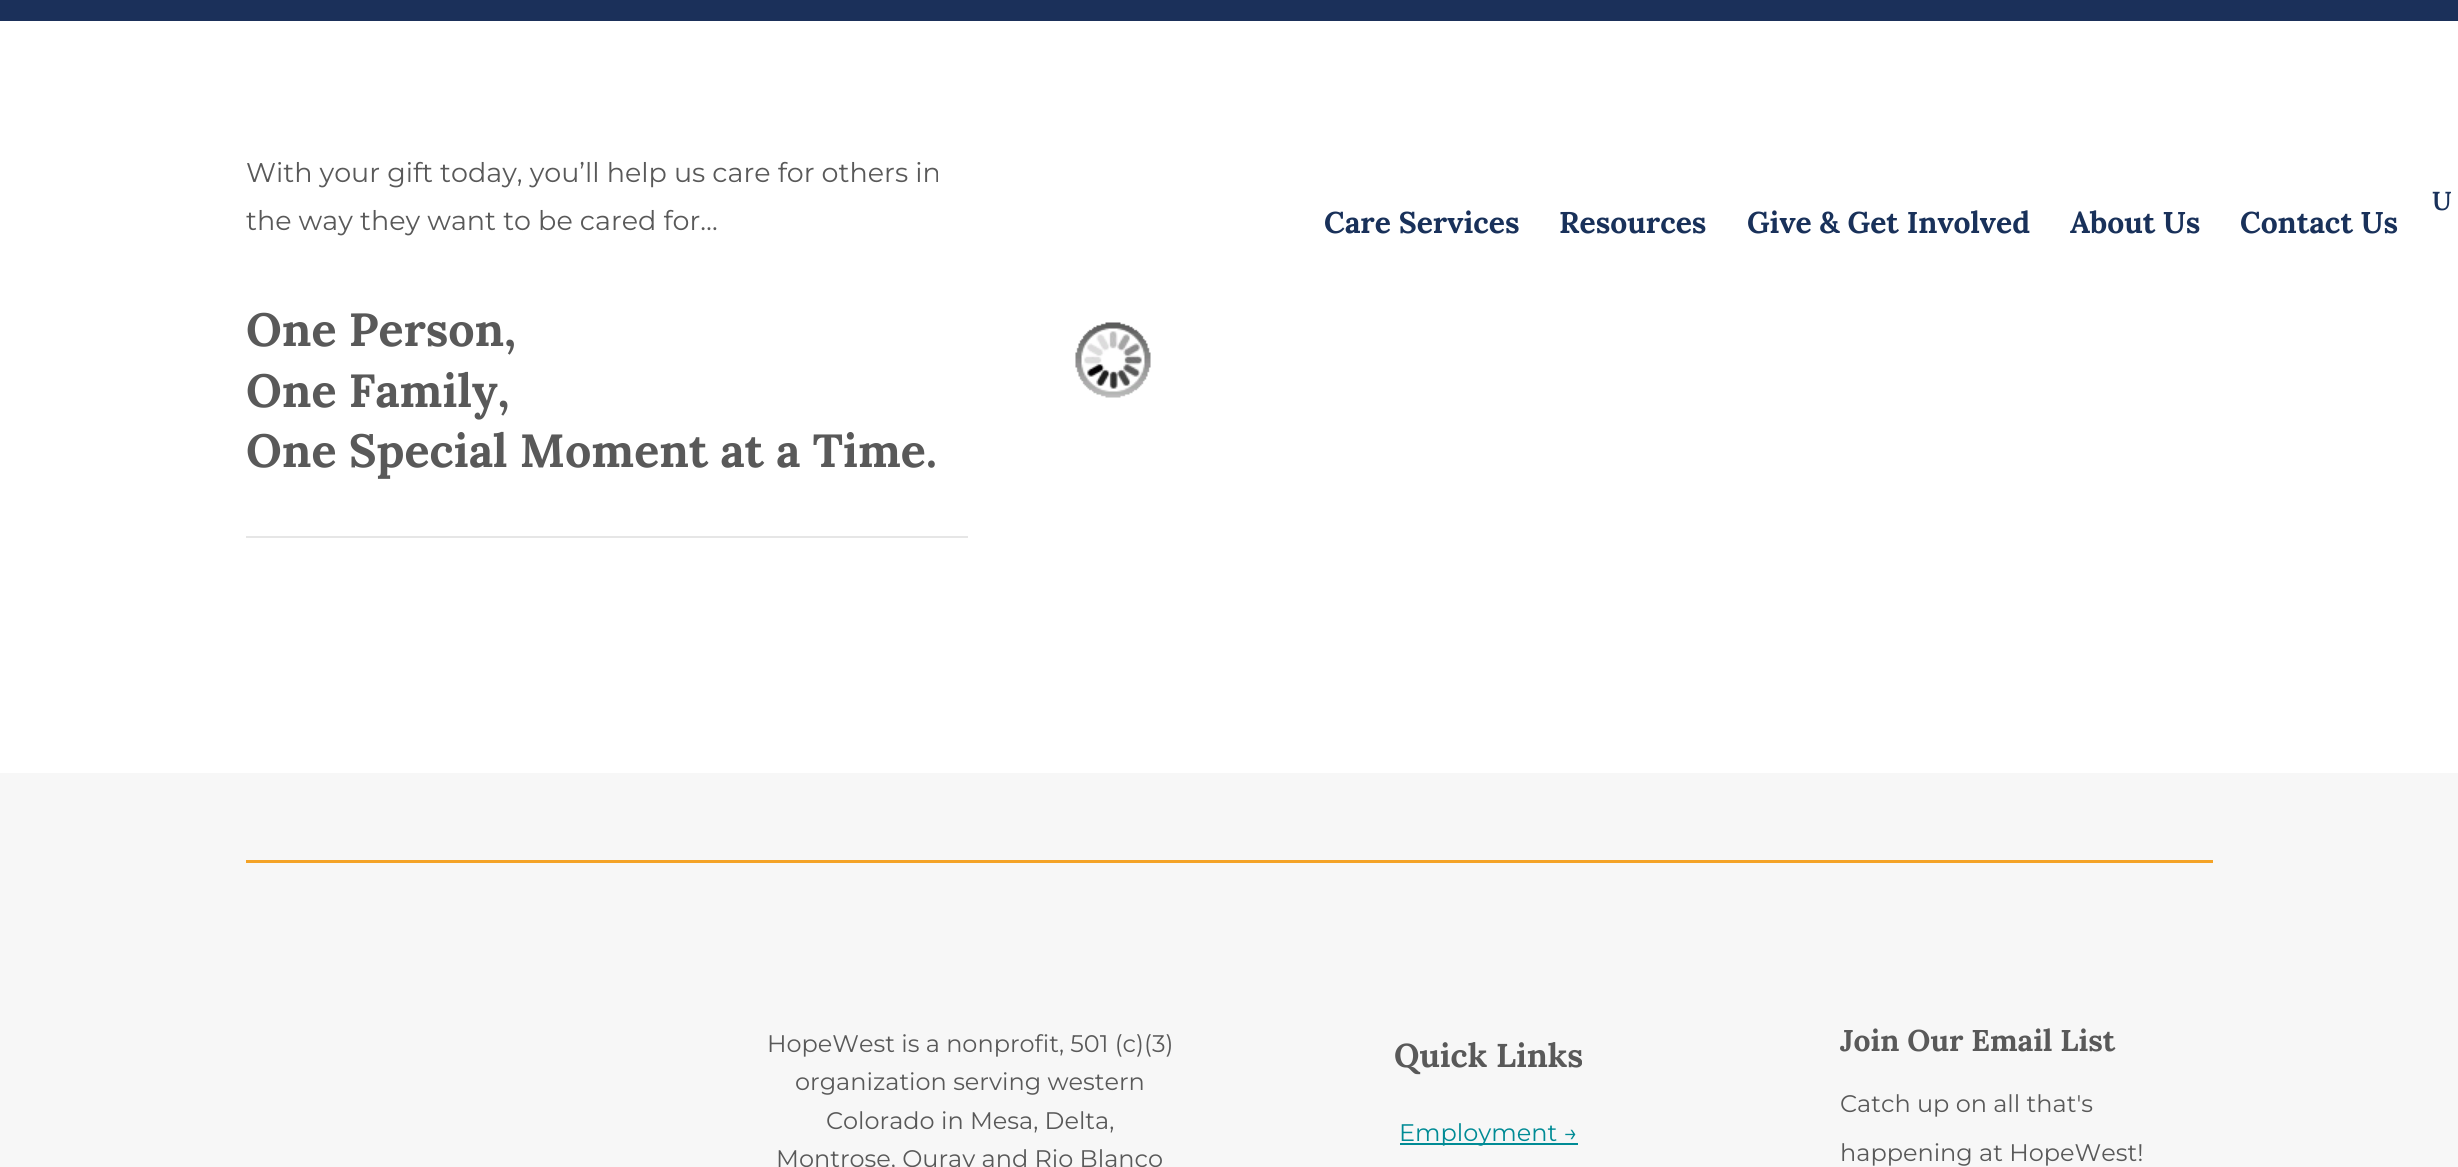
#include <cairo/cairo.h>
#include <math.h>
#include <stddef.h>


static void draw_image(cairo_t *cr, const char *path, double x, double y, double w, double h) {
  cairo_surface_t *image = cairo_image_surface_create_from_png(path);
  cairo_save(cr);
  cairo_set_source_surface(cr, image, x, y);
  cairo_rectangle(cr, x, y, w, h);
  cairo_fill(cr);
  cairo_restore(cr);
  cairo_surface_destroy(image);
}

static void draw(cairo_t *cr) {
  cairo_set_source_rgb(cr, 1, 1, 1);
  cairo_paint(cr);
  cairo_set_source_rgb(cr, 27 / 255.0, 48 / 255.0, 90 / 255.0);
  cairo_rectangle(cr, 0, 0, 2458, 21);
  cairo_fill(cr);
  cairo_set_source_rgb(cr, 230 / 255.0, 230 / 255.0, 230 / 255.0);
  cairo_rectangle(cr, 246, 536, 722, 2);
  cairo_fill(cr);
  draw_image(cr, "images/1.png", 1075, 322, 76, 76);
  cairo_set_source_rgb(cr, 247 / 255.0, 247 / 255.0, 247 / 255.0);
  cairo_rectangle(cr, 0, 773, 2458, 394);
  cairo_fill(cr);
  cairo_set_source_rgb(cr, 244 / 255.0, 163 / 255.0, 39 / 255.0);
  cairo_rectangle(cr, 246, 860, 1967, 3);
  cairo_fill(cr);
  cairo_set_source_rgb(cr, 0, 139 / 255.0, 149 / 255.0);
  cairo_rectangle(cr, 1400, 1143, 178, 2);
  cairo_fill(cr);
  cairo_select_font_face(cr, "Montserrat", CAIRO_FONT_SLANT_NORMAL, CAIRO_FONT_WEIGHT_NORMAL);
  cairo_set_font_size(cr, 27);
  cairo_set_source_rgb(cr, 89 / 255.0, 89 / 255.0, 89 / 255.0);
  cairo_move_to(cr, 246, 182);
  cairo_show_text(cr, "With your gift today, you’ll help us care for others in");
  cairo_move_to(cr, 246, 230);
  cairo_show_text(cr, "the way they want to be cared for…");
  cairo_select_font_face(cr, "Lora", CAIRO_FONT_SLANT_NORMAL, CAIRO_FONT_WEIGHT_BOLD);
  cairo_set_font_size(cr, 46.5);
  cairo_move_to(cr, 246, 346);
  cairo_show_text(cr, "One Person,");
  cairo_move_to(cr, 246, 407);
  cairo_show_text(cr, "One Family,");
  cairo_move_to(cr, 246, 467);
  cairo_show_text(cr, "One Special Moment at a Time.");
  cairo_select_font_face(cr, "Montserrat", CAIRO_FONT_SLANT_NORMAL, CAIRO_FONT_WEIGHT_NORMAL);
  cairo_set_font_size(cr, 24);
  cairo_move_to(cr, 767, 1052);
  cairo_show_text(cr, "HopeWest is a nonprofit, 501 (c)(3)");
  cairo_move_to(cr, 795, 1090);
  cairo_show_text(cr, "organization serving western");
  cairo_move_to(cr, 826, 1129);
  cairo_show_text(cr, "Colorado in Mesa, Delta,");
  cairo_move_to(cr, 776, 1167);
  cairo_show_text(cr, "Montrose, Ouray and Rio Blanco");
  cairo_select_font_face(cr, "Lora", CAIRO_FONT_SLANT_NORMAL, CAIRO_FONT_WEIGHT_BOLD);
  cairo_set_font_size(cr, 33);
  cairo_move_to(cr, 1394, 1067);
  cairo_show_text(cr, "Quick Links");
  cairo_select_font_face(cr, "Montserrat", CAIRO_FONT_SLANT_NORMAL, CAIRO_FONT_WEIGHT_NORMAL);
  cairo_set_font_size(cr, 24);
  cairo_set_source_rgb(cr, 0, 139 / 255.0, 149 / 255.0);
  cairo_move_to(cr, 1399, 1141);
  cairo_show_text(cr, "Employment →");
  cairo_select_font_face(cr, "Lora", CAIRO_FONT_SLANT_NORMAL, CAIRO_FONT_WEIGHT_BOLD);
  cairo_set_font_size(cr, 30);
  cairo_set_source_rgb(cr, 89 / 255.0, 89 / 255.0, 89 / 255.0);
  cairo_move_to(cr, 1840, 1051);
  cairo_show_text(cr, "Join Our Email List");
  cairo_select_font_face(cr, "Montserrat", CAIRO_FONT_SLANT_NORMAL, CAIRO_FONT_WEIGHT_NORMAL);
  cairo_set_font_size(cr, 24);
  cairo_move_to(cr, 1840, 1112);
  cairo_show_text(cr, "Catch up on all that's");
  cairo_move_to(cr, 1840, 1161);
  cairo_show_text(cr, "happening at HopeWest!");
  cairo_select_font_face(cr, "Lora SemiBold", CAIRO_FONT_SLANT_NORMAL, CAIRO_FONT_WEIGHT_NORMAL);
  cairo_set_font_size(cr, 26);
  cairo_set_source_rgb(cr, 25 / 255.0, 49 / 255.0, 90 / 255.0);
  cairo_move_to(cr, 2432, 210);
  cairo_show_text(cr, "U");
  cairo_select_font_face(cr, "Lora", CAIRO_FONT_SLANT_NORMAL, CAIRO_FONT_WEIGHT_BOLD);
  cairo_set_font_size(cr, 30);
  cairo_move_to(cr, 1324, 233);
  cairo_show_text(cr, "Care Services");
  cairo_move_to(cr, 1559, 233);
  cairo_show_text(cr, "Resources");
  cairo_move_to(cr, 1747, 233);
  cairo_show_text(cr, "Give & Get Involved");
  cairo_move_to(cr, 2070, 233);
  cairo_show_text(cr, "About Us");
  cairo_move_to(cr, 2240, 233);
  cairo_show_text(cr, "Contact Us");
}

int main(void) {
  cairo_surface_t *surface = cairo_image_surface_create(CAIRO_FORMAT_RGB24, 2458, 1167);
  cairo_t *cr = cairo_create(surface);
  cairo_font_options_t *options = cairo_font_options_create();
  cairo_font_options_set_hint_metrics(options, CAIRO_HINT_METRICS_OFF);
  cairo_font_options_set_hint_style(options, CAIRO_HINT_STYLE_NONE);
  cairo_set_font_options(cr, options);
  cairo_set_miter_limit(cr, 4);
  draw(cr);
  cairo_surface_write_to_png(surface, "out.png");
  cairo_font_options_destroy(options);
  cairo_destroy(cr);
  cairo_surface_destroy(surface);
  return 0;
}
